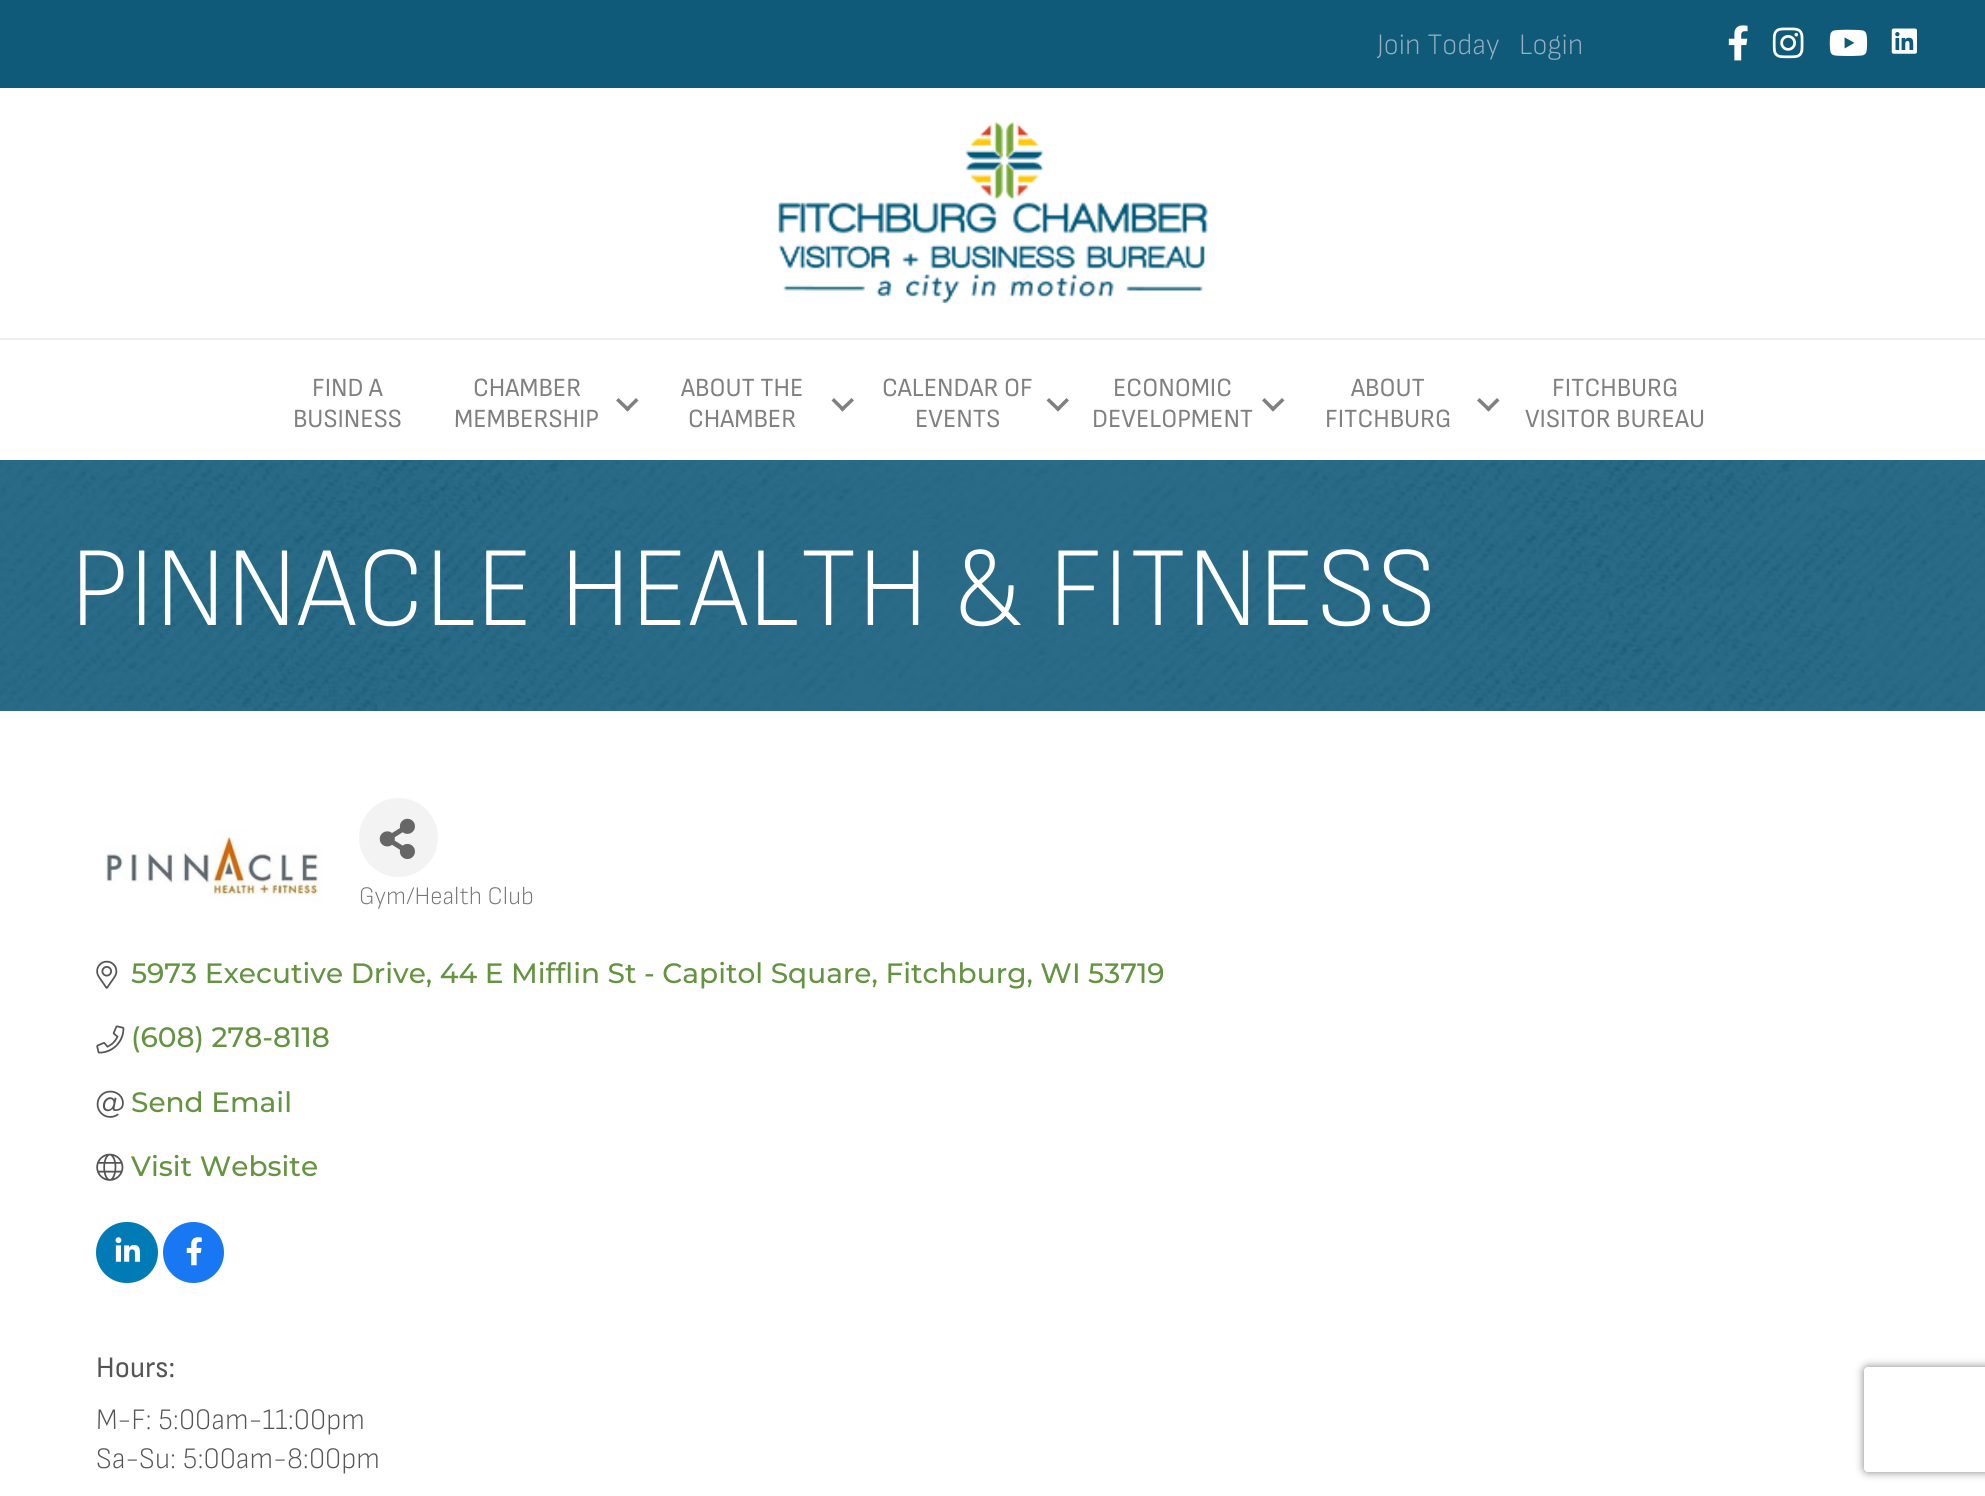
#include <cairo/cairo.h>
#include <math.h>
#include <stddef.h>


static void rounded_rect(cairo_t *cr, double x, double y, double w, double h, double r) {
  cairo_new_sub_path(cr);
  cairo_arc(cr, x + w - r, y + h - r, r, 0, M_PI / 2);
  cairo_arc(cr, x + r, y + h - r, r, M_PI / 2, M_PI);
  cairo_arc(cr, x + r, y + r, r, M_PI, 1.5 * M_PI);
  cairo_arc(cr, x + w - r, y + r, r, 1.5 * M_PI, 2 * M_PI);
  cairo_close_path(cr);
}

static void draw_shadow(cairo_t *cr, double x, double y, double w, double h, double r, double blur, double alpha) {
  cairo_push_group_with_content(cr, CAIRO_CONTENT_ALPHA);
  cairo_set_operator(cr, CAIRO_OPERATOR_SOURCE);
  for (int i = 15; i >= -15 && fmin(w, h) + blur * i / 3 > 0; i -= 2) {
    double e = blur * i / 6;
    cairo_set_source_rgba(cr, 0, 0, 0, alpha * erfc((i - 1) / 8.5) / 2);
    rounded_rect(cr, x - e, y - e, w + 2 * e, h + 2 * e, fmax(0, fmin(r + e + blur * .6, fmin(w, h) / 2 + e)));
    cairo_fill(cr);
  }
  cairo_pattern_t *soft = cairo_pop_group(cr);
  cairo_mask(cr, soft);
  cairo_pattern_destroy(soft);
}

static void draw_image(cairo_t *cr, const char *path, double x, double y, double w, double h) {
  cairo_surface_t *image = cairo_image_surface_create_from_png(path);
  cairo_save(cr);
  cairo_set_source_surface(cr, image, x, y);
  cairo_rectangle(cr, x, y, w, h);
  cairo_fill(cr);
  cairo_restore(cr);
  cairo_surface_destroy(image);
}

static void draw(cairo_t *cr) {
  cairo_set_source_rgb(cr, 1, 1, 1);
  cairo_paint(cr);
  cairo_set_source_rgb(cr, 42 / 255.0, 108 / 255.0, 136 / 255.0);
  cairo_rectangle(cr, 0, 460, 1985, 251);
  cairo_fill(cr);
  cairo_set_source_rgb(cr, 16 / 255.0, 90 / 255.0, 121 / 255.0);
  cairo_rectangle(cr, 0, 0, 1985, 88);
  cairo_fill(cr);
  draw_image(cr, "images/1.png", 1728, 25, 20, 36);
  draw_image(cr, "images/2.png", 1772, 27, 32, 32);
  draw_image(cr, "images/3.png", 1829, 29, 39, 27);
  draw_image(cr, "images/4.png", 1891, 28, 26, 26);
  draw_image(cr, "images/5.png", 778, 122, 430, 181);
  cairo_set_source_rgb(cr, 238 / 255.0, 238 / 255.0, 238 / 255.0);
  cairo_rectangle(cr, 0, 338, 1985, 2);
  cairo_fill(cr);
  cairo_set_source_rgb(cr, 128 / 255.0, 128 / 255.0, 128 / 255.0);
  cairo_new_path(cr);
  cairo_move_to(cr, 636, 398);
  cairo_line_to(cr, 638.5, 400.5);
  cairo_line_to(cr, 627.5, 411.5);
  cairo_line_to(cr, 625, 409);
  cairo_close_path(cr);
  cairo_fill(cr);
  cairo_new_path(cr);
  cairo_move_to(cr, 618.5, 398);
  cairo_line_to(cr, 630, 409);
  cairo_line_to(cr, 627.5, 411.5);
  cairo_line_to(cr, 616, 400.5);
  cairo_close_path(cr);
  cairo_fill(cr);
  cairo_new_path(cr);
  cairo_move_to(cr, 851.5, 398);
  cairo_line_to(cr, 854, 400.5);
  cairo_line_to(cr, 842.5, 411.5);
  cairo_line_to(cr, 840, 409);
  cairo_close_path(cr);
  cairo_fill(cr);
  cairo_new_path(cr);
  cairo_move_to(cr, 834, 398);
  cairo_line_to(cr, 845, 409);
  cairo_line_to(cr, 842.5, 411.5);
  cairo_line_to(cr, 831.5, 400.5);
  cairo_close_path(cr);
  cairo_fill(cr);
  cairo_new_path(cr);
  cairo_move_to(cr, 1066.5, 398);
  cairo_line_to(cr, 1069, 400.5);
  cairo_line_to(cr, 1058, 411.5);
  cairo_line_to(cr, 1055.5, 409);
  cairo_close_path(cr);
  cairo_fill(cr);
  cairo_new_path(cr);
  cairo_move_to(cr, 1049, 398);
  cairo_line_to(cr, 1060.5, 409);
  cairo_line_to(cr, 1058, 411.5);
  cairo_line_to(cr, 1046.5, 400.5);
  cairo_close_path(cr);
  cairo_fill(cr);
  cairo_new_path(cr);
  cairo_move_to(cr, 1282, 398);
  cairo_line_to(cr, 1284.5, 400.5);
  cairo_line_to(cr, 1273, 411.5);
  cairo_line_to(cr, 1270.5, 409);
  cairo_close_path(cr);
  cairo_fill(cr);
  cairo_new_path(cr);
  cairo_move_to(cr, 1264.5, 398);
  cairo_line_to(cr, 1275.5, 409);
  cairo_line_to(cr, 1273, 411.5);
  cairo_line_to(cr, 1262, 400.5);
  cairo_close_path(cr);
  cairo_fill(cr);
  cairo_new_path(cr);
  cairo_move_to(cr, 1497, 398);
  cairo_line_to(cr, 1499.5, 400.5);
  cairo_line_to(cr, 1488.5, 411.5);
  cairo_line_to(cr, 1486, 409);
  cairo_close_path(cr);
  cairo_fill(cr);
  cairo_new_path(cr);
  cairo_move_to(cr, 1479.5, 398);
  cairo_line_to(cr, 1491, 409);
  cairo_line_to(cr, 1488.5, 411.5);
  cairo_line_to(cr, 1477, 400.5);
  cairo_close_path(cr);
  cairo_fill(cr);
  draw_image(cr, "images/6.png", 0, 460, 1985, 251);
  draw_image(cr, "images/7.png", 105, 828, 218, 75);
  cairo_set_source_rgb(cr, 243 / 255.0, 243 / 255.0, 243 / 255.0);
  cairo_arc(cr, 398.5, 837.5, 39.5, 0, 2 * M_PI);
  cairo_fill(cr);
  draw_image(cr, "images/8.png", 379, 818, 36, 41);
  draw_image(cr, "images/9.png", 96, 960, 22, 29);
  draw_image(cr, "images/10.png", 96, 1025, 29, 29);
  draw_image(cr, "images/11.png", 96, 1090, 28, 28);
  draw_image(cr, "images/12.png", 96, 1153, 28, 28);
  cairo_set_source_rgb(cr, 0, 123 / 255.0, 181 / 255.0);
  rounded_rect(cr, 96, 1222, 62, 61, 30.5);
  cairo_fill(cr);
  draw_image(cr, "images/13.png", 115, 1237, 25, 25);
  cairo_set_source_rgb(cr, 24 / 255.0, 119 / 255.0, 242 / 255.0);
  cairo_arc(cr, 193.5, 1252.5, 30.5, 0, 2 * M_PI);
  cairo_fill(cr);
  draw_image(cr, "images/14.png", 186, 1237, 16, 29);
  cairo_save(cr);
  cairo_set_fill_rule(cr, CAIRO_FILL_RULE_EVEN_ODD);
  cairo_new_path(cr);
  cairo_move_to(cr, 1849, 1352);
  cairo_line_to(cr, 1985, 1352);
  cairo_line_to(cr, 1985, 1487);
  cairo_line_to(cr, 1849, 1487);
  cairo_close_path(cr);
  cairo_move_to(cr, 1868, 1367);
  cairo_line_to(cr, 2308, 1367);
  cairo_curve_to(cr, 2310, 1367, 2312, 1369, 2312, 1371);
  cairo_line_to(cr, 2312, 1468);
  cairo_curve_to(cr, 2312, 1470, 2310, 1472, 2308, 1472);
  cairo_line_to(cr, 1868, 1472);
  cairo_curve_to(cr, 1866, 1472, 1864, 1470, 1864, 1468);
  cairo_line_to(cr, 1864, 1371);
  cairo_curve_to(cr, 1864, 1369, 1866, 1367, 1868, 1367);
  cairo_close_path(cr);
  cairo_clip(cr);
  cairo_set_source_rgb(cr, 128 / 255.0, 128 / 255.0, 128 / 255.0);
  draw_shadow(cr, 1864, 1367, 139, 105, 4, 4.5, 1);
  cairo_restore(cr);
  cairo_select_font_face(cr, "Sofia Sans Semi Condensed Light", CAIRO_FONT_SLANT_NORMAL, CAIRO_FONT_WEIGHT_NORMAL);
  cairo_set_font_size(cr, 29.75);
  cairo_set_source_rgb(cr, 149 / 255.0, 175 / 255.0, 196 / 255.0);
  cairo_move_to(cr, 1377, 54);
  cairo_show_text(cr, "Join Today");
  cairo_move_to(cr, 1519, 54);
  cairo_show_text(cr, "Login");
  cairo_select_font_face(cr, "Sofia Sans Semi Condensed", CAIRO_FONT_SLANT_NORMAL, CAIRO_FONT_WEIGHT_NORMAL);
  cairo_set_font_size(cr, 26.25);
  cairo_set_source_rgb(cr, 128 / 255.0, 128 / 255.0, 128 / 255.0);
  cairo_move_to(cr, 312, 396);
  cairo_show_text(cr, "FIND A");
  cairo_move_to(cr, 293, 427);
  cairo_show_text(cr, "BUSINESS");
  cairo_move_to(cr, 473, 396);
  cairo_show_text(cr, "CHAMBER");
  cairo_move_to(cr, 454, 427);
  cairo_show_text(cr, "MEMBERSHIP");
  cairo_move_to(cr, 681, 396);
  cairo_show_text(cr, "ABOUT THE");
  cairo_move_to(cr, 688, 427);
  cairo_show_text(cr, "CHAMBER");
  cairo_move_to(cr, 882, 396);
  cairo_show_text(cr, "CALENDAR OF");
  cairo_move_to(cr, 915, 427);
  cairo_show_text(cr, "EVENTS");
  cairo_move_to(cr, 1113, 396);
  cairo_show_text(cr, "ECONOMIC");
  cairo_move_to(cr, 1092, 427);
  cairo_show_text(cr, "DEVELOPMENT");
  cairo_move_to(cr, 1351, 396);
  cairo_show_text(cr, "ABOUT");
  cairo_move_to(cr, 1325, 427);
  cairo_show_text(cr, "FITCHBURG");
  cairo_move_to(cr, 1552, 396);
  cairo_show_text(cr, "FITCHBURG");
  cairo_move_to(cr, 1525, 427);
  cairo_show_text(cr, "VISITOR BUREAU");
  cairo_select_font_face(cr, "Sofia Sans Semi Condensed Light", CAIRO_FONT_SLANT_NORMAL, CAIRO_FONT_WEIGHT_NORMAL);
  cairo_set_font_size(cr, 113.75);
  cairo_set_source_rgb(cr, 1, 1, 1);
  cairo_move_to(cr, 70, 625);
  cairo_show_text(cr, "PINNACLE HEALTH & FITNESS");
  cairo_set_font_size(cr, 25.25);
  cairo_set_source_rgb(cr, 119 / 255.0, 119 / 255.0, 119 / 255.0);
  cairo_move_to(cr, 359, 904);
  cairo_show_text(cr, "Gym/Health Club");
  cairo_select_font_face(cr, "Montserrat Thin", CAIRO_FONT_SLANT_NORMAL, CAIRO_FONT_WEIGHT_NORMAL);
  cairo_set_font_size(cr, 28);
  cairo_set_source_rgb(cr, 100 / 255.0, 147 / 255.0, 65 / 255.0);
  cairo_move_to(cr, 131, 983);
  cairo_show_text(cr, "5973 Executive Drive, 44 E Mifflin St - Capitol Square, Fitchburg, WI 53719");
  cairo_move_to(cr, 131, 1047);
  cairo_show_text(cr, "(608) 278-8118");
  cairo_move_to(cr, 131, 1112);
  cairo_show_text(cr, "Send Email");
  cairo_move_to(cr, 131, 1176);
  cairo_show_text(cr, "Visit Website");
  cairo_select_font_face(cr, "Sofia Sans Semi Condensed", CAIRO_FONT_SLANT_NORMAL, CAIRO_FONT_WEIGHT_NORMAL);
  cairo_set_font_size(cr, 29.75);
  cairo_set_source_rgb(cr, 85 / 255.0, 85 / 255.0, 85 / 255.0);
  cairo_move_to(cr, 96, 1377);
  cairo_show_text(cr, "Hours:");
  cairo_select_font_face(cr, "Sofia Sans Semi Condensed Light", CAIRO_FONT_SLANT_NORMAL, CAIRO_FONT_WEIGHT_NORMAL);
  cairo_move_to(cr, 96, 1429);
  cairo_show_text(cr, "M-F: 5:00am-11:00pm");
  cairo_move_to(cr, 96, 1468);
  cairo_show_text(cr, "Sa-Su: 5:00am-8:00pm");
}

int main(void) {
  cairo_surface_t *surface = cairo_image_surface_create(CAIRO_FORMAT_RGB24, 1985, 1496);
  cairo_t *cr = cairo_create(surface);
  cairo_font_options_t *options = cairo_font_options_create();
  cairo_font_options_set_hint_metrics(options, CAIRO_HINT_METRICS_OFF);
  cairo_font_options_set_hint_style(options, CAIRO_HINT_STYLE_NONE);
  cairo_set_font_options(cr, options);
  cairo_set_miter_limit(cr, 4);
  draw(cr);
  cairo_surface_write_to_png(surface, "out.png");
  cairo_font_options_destroy(options);
  cairo_destroy(cr);
  cairo_surface_destroy(surface);
  return 0;
}
